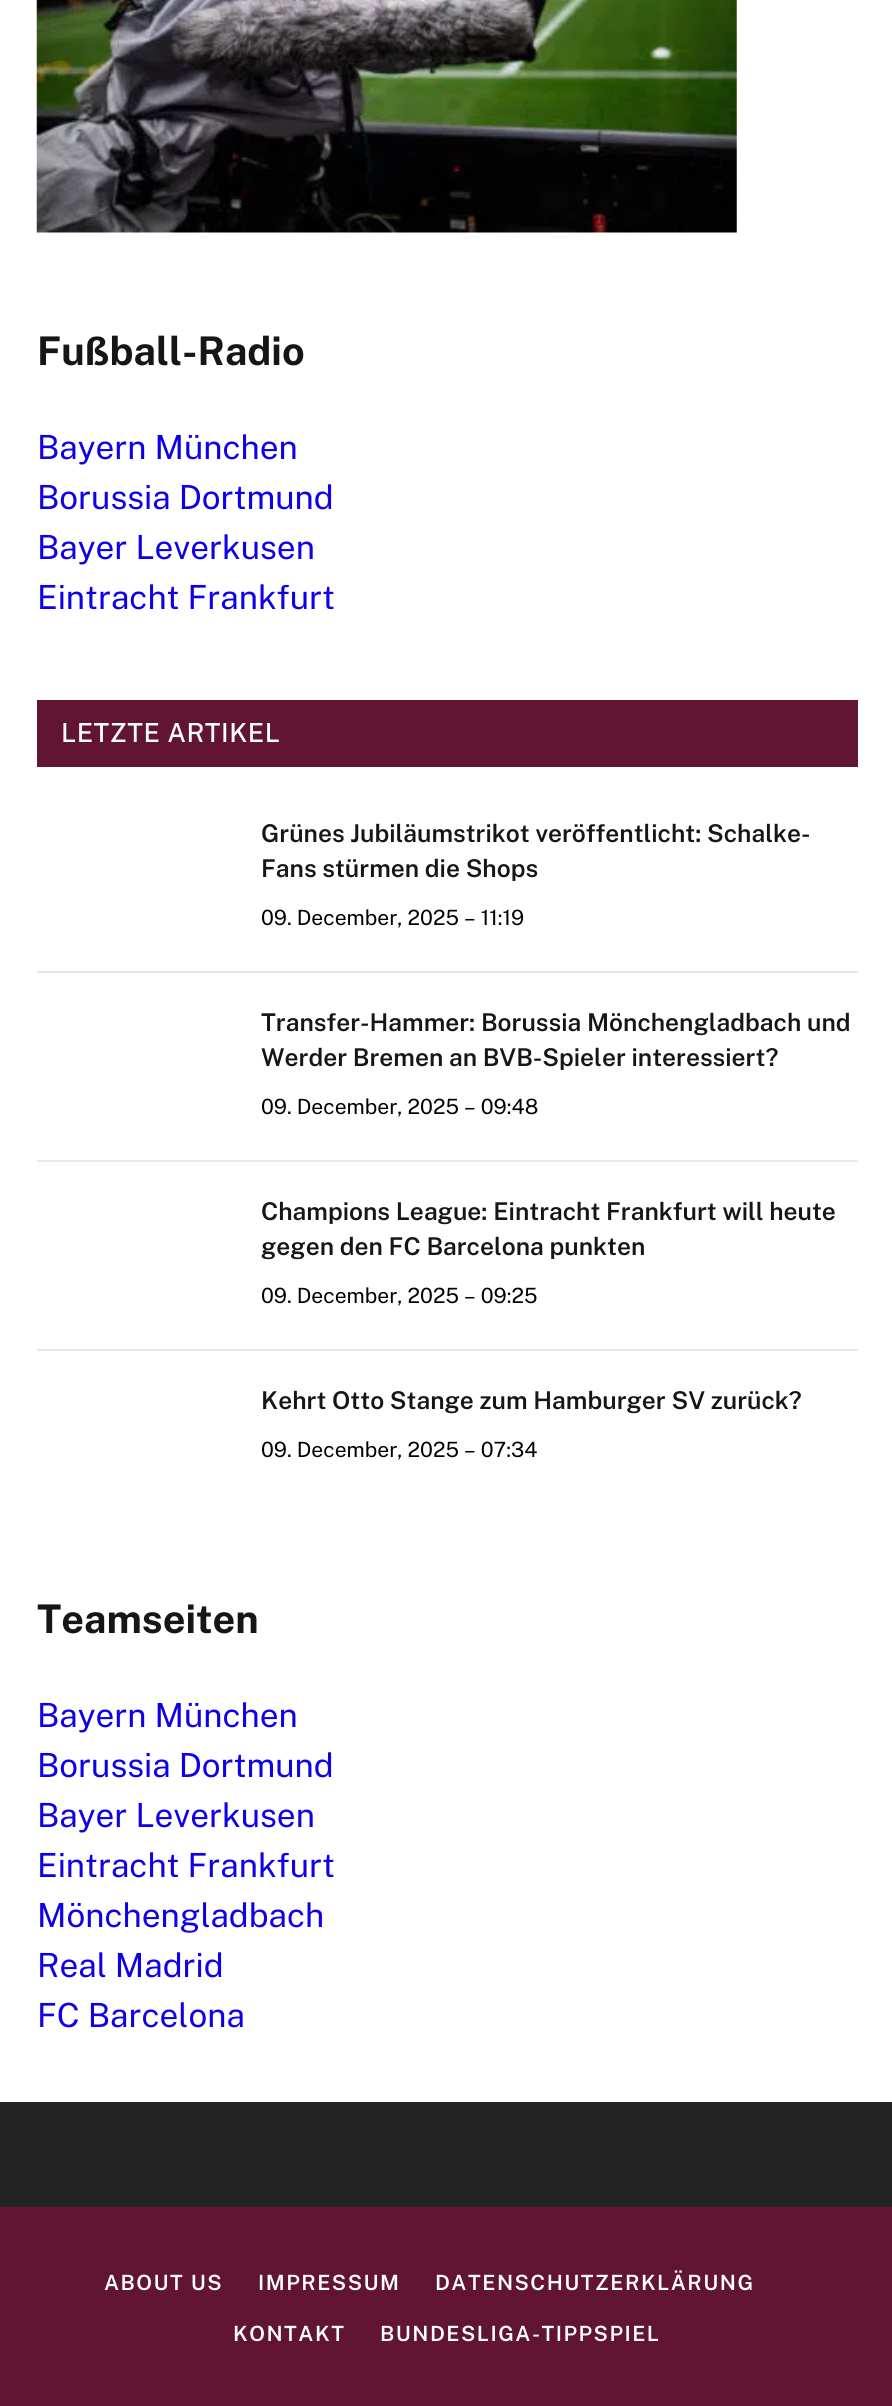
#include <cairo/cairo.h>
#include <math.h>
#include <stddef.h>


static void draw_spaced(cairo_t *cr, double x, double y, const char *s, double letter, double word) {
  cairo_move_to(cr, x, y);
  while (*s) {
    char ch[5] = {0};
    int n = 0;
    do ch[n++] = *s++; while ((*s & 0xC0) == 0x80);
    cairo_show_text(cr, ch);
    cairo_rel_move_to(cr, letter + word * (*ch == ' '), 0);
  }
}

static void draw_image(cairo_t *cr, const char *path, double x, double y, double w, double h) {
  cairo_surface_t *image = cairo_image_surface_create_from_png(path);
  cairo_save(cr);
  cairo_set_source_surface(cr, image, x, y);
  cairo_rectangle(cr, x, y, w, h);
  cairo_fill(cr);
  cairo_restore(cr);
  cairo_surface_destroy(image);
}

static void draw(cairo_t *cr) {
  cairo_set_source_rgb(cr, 35 / 255.0, 35 / 255.0, 35 / 255.0);
  cairo_paint(cr);
  cairo_set_source_rgb(cr, 1, 1, 1);
  cairo_rectangle(cr, 0, 0, 892, 2102);
  cairo_fill(cr);
  draw_image(cr, "images/1.png", 36, 0, 701, 233);
  cairo_set_source_rgb(cr, 98 / 255.0, 21 / 255.0, 51 / 255.0);
  cairo_rectangle(cr, 37, 700, 821, 67);
  cairo_fill(cr);
  cairo_set_source_rgb(cr, 232 / 255.0, 232 / 255.0, 232 / 255.0);
  cairo_rectangle(cr, 37, 971, 821, 2);
  cairo_fill(cr);
  cairo_rectangle(cr, 37, 1160, 821, 2);
  cairo_fill(cr);
  cairo_rectangle(cr, 37, 1349, 821, 2);
  cairo_fill(cr);
  cairo_set_source_rgb(cr, 98 / 255.0, 21 / 255.0, 51 / 255.0);
  cairo_rectangle(cr, 0, 2207, 892, 199);
  cairo_fill(cr);
  cairo_select_font_face(cr, "Public Sans", CAIRO_FONT_SLANT_NORMAL, CAIRO_FONT_WEIGHT_BOLD);
  cairo_set_font_size(cr, 39.5);
  cairo_set_source_rgb(cr, 22 / 255.0, 22 / 255.0, 22 / 255.0);
  cairo_move_to(cr, 37, 365);
  cairo_show_text(cr, "Fußball-Radio");
  cairo_select_font_face(cr, "Public Sans", CAIRO_FONT_SLANT_NORMAL, CAIRO_FONT_WEIGHT_NORMAL);
  cairo_set_font_size(cr, 33.25);
  cairo_set_source_rgb(cr, 15 / 255.0, 0, 234 / 255.0);
  cairo_move_to(cr, 37, 459);
  cairo_show_text(cr, "Bayern München");
  cairo_move_to(cr, 37, 509);
  cairo_show_text(cr, "Borussia Dortmund");
  cairo_move_to(cr, 37, 559);
  cairo_show_text(cr, "Bayer Leverkusen");
  cairo_move_to(cr, 37, 609);
  cairo_show_text(cr, "Eintracht Frankfurt");
  cairo_select_font_face(cr, "Public Sans Medium", CAIRO_FONT_SLANT_NORMAL, CAIRO_FONT_WEIGHT_NORMAL);
  cairo_set_font_size(cr, 26.25);
  cairo_set_source_rgb(cr, 1, 1, 1);
  draw_spaced(cr, 61, 742, "LETZTE ARTIKEL", 0.5, 0);
  cairo_select_font_face(cr, "Public Sans SemiBold", CAIRO_FONT_SLANT_NORMAL, CAIRO_FONT_WEIGHT_NORMAL);
  cairo_set_font_size(cr, 24.5);
  cairo_set_source_rgb(cr, 22 / 255.0, 22 / 255.0, 22 / 255.0);
  cairo_move_to(cr, 261, 842);
  cairo_show_text(cr, "Grünes Jubiläumstrikot veröffentlicht: Schalke-");
  cairo_move_to(cr, 261, 877);
  cairo_show_text(cr, "Fans stürmen die Shops");
  cairo_select_font_face(cr, "Public Sans", CAIRO_FONT_SLANT_NORMAL, CAIRO_FONT_WEIGHT_NORMAL);
  cairo_set_font_size(cr, 21);
  cairo_set_source_rgb(cr, 0, 0, 0);
  cairo_move_to(cr, 261, 925);
  cairo_show_text(cr, "09. December, 2025 – 11:19");
  cairo_select_font_face(cr, "Public Sans SemiBold", CAIRO_FONT_SLANT_NORMAL, CAIRO_FONT_WEIGHT_NORMAL);
  cairo_set_font_size(cr, 24.5);
  cairo_set_source_rgb(cr, 22 / 255.0, 22 / 255.0, 22 / 255.0);
  cairo_move_to(cr, 261, 1031);
  cairo_show_text(cr, "Transfer-Hammer: Borussia Mönchengladbach und");
  cairo_move_to(cr, 261, 1066);
  cairo_show_text(cr, "Werder Bremen an BVB-Spieler interessiert?");
  cairo_select_font_face(cr, "Public Sans", CAIRO_FONT_SLANT_NORMAL, CAIRO_FONT_WEIGHT_NORMAL);
  cairo_set_font_size(cr, 21);
  cairo_set_source_rgb(cr, 0, 0, 0);
  cairo_move_to(cr, 261, 1114);
  cairo_show_text(cr, "09. December, 2025 – 09:48");
  cairo_select_font_face(cr, "Public Sans SemiBold", CAIRO_FONT_SLANT_NORMAL, CAIRO_FONT_WEIGHT_NORMAL);
  cairo_set_font_size(cr, 24.5);
  cairo_set_source_rgb(cr, 22 / 255.0, 22 / 255.0, 22 / 255.0);
  cairo_move_to(cr, 261, 1220);
  cairo_show_text(cr, "Champions League: Eintracht Frankfurt will heute");
  cairo_move_to(cr, 261, 1255);
  cairo_show_text(cr, "gegen den FC Barcelona punkten");
  cairo_select_font_face(cr, "Public Sans", CAIRO_FONT_SLANT_NORMAL, CAIRO_FONT_WEIGHT_NORMAL);
  cairo_set_font_size(cr, 21);
  cairo_set_source_rgb(cr, 0, 0, 0);
  cairo_move_to(cr, 261, 1303);
  cairo_show_text(cr, "09. December, 2025 – 09:25");
  cairo_select_font_face(cr, "Public Sans SemiBold", CAIRO_FONT_SLANT_NORMAL, CAIRO_FONT_WEIGHT_NORMAL);
  cairo_set_font_size(cr, 24.5);
  cairo_set_source_rgb(cr, 22 / 255.0, 22 / 255.0, 22 / 255.0);
  cairo_move_to(cr, 261, 1409);
  cairo_show_text(cr, "Kehrt Otto Stange zum Hamburger SV zurück?");
  cairo_select_font_face(cr, "Public Sans", CAIRO_FONT_SLANT_NORMAL, CAIRO_FONT_WEIGHT_NORMAL);
  cairo_set_font_size(cr, 21);
  cairo_set_source_rgb(cr, 0, 0, 0);
  cairo_move_to(cr, 261, 1457);
  cairo_show_text(cr, "09. December, 2025 – 07:34");
  cairo_select_font_face(cr, "Public Sans", CAIRO_FONT_SLANT_NORMAL, CAIRO_FONT_WEIGHT_BOLD);
  cairo_set_font_size(cr, 39.5);
  cairo_set_source_rgb(cr, 22 / 255.0, 22 / 255.0, 22 / 255.0);
  cairo_move_to(cr, 37, 1633);
  cairo_show_text(cr, "Teamseiten");
  cairo_select_font_face(cr, "Public Sans", CAIRO_FONT_SLANT_NORMAL, CAIRO_FONT_WEIGHT_NORMAL);
  cairo_set_font_size(cr, 33.25);
  cairo_set_source_rgb(cr, 15 / 255.0, 0, 234 / 255.0);
  cairo_move_to(cr, 37, 1727);
  cairo_show_text(cr, "Bayern München");
  cairo_move_to(cr, 37, 1777);
  cairo_show_text(cr, "Borussia Dortmund");
  cairo_move_to(cr, 37, 1827);
  cairo_show_text(cr, "Bayer Leverkusen");
  cairo_move_to(cr, 37, 1877);
  cairo_show_text(cr, "Eintracht Frankfurt");
  cairo_move_to(cr, 37, 1927);
  cairo_show_text(cr, "Mönchengladbach");
  cairo_move_to(cr, 37, 1977);
  cairo_show_text(cr, "Real Madrid");
  cairo_move_to(cr, 37, 2027);
  cairo_show_text(cr, "FC Barcelona");
  cairo_select_font_face(cr, "Public Sans SemiBold", CAIRO_FONT_SLANT_NORMAL, CAIRO_FONT_WEIGHT_NORMAL);
  cairo_set_font_size(cr, 21);
  cairo_set_source_rgb(cr, 1, 1, 1);
  draw_spaced(cr, 104, 2290, "ABOUT US", 1.5, 0);
  draw_spaced(cr, 258, 2290, "IMPRESSUM", 1.5, 0);
  draw_spaced(cr, 435, 2290, "DATENSCHUTZERKLÄRUNG", 1.5, 0);
  draw_spaced(cr, 233, 2341, "KONTAKT", 1.5, 0);
  draw_spaced(cr, 380, 2341, "BUNDESLIGA-TIPPSPIEL", 1.5, 0);
}

int main(void) {
  cairo_surface_t *surface = cairo_image_surface_create(CAIRO_FORMAT_RGB24, 892, 2406);
  cairo_t *cr = cairo_create(surface);
  cairo_font_options_t *options = cairo_font_options_create();
  cairo_font_options_set_hint_metrics(options, CAIRO_HINT_METRICS_OFF);
  cairo_font_options_set_hint_style(options, CAIRO_HINT_STYLE_NONE);
  cairo_set_font_options(cr, options);
  cairo_set_miter_limit(cr, 4);
  draw(cr);
  cairo_surface_write_to_png(surface, "out.png");
  cairo_font_options_destroy(options);
  cairo_destroy(cr);
  cairo_surface_destroy(surface);
  return 0;
}
